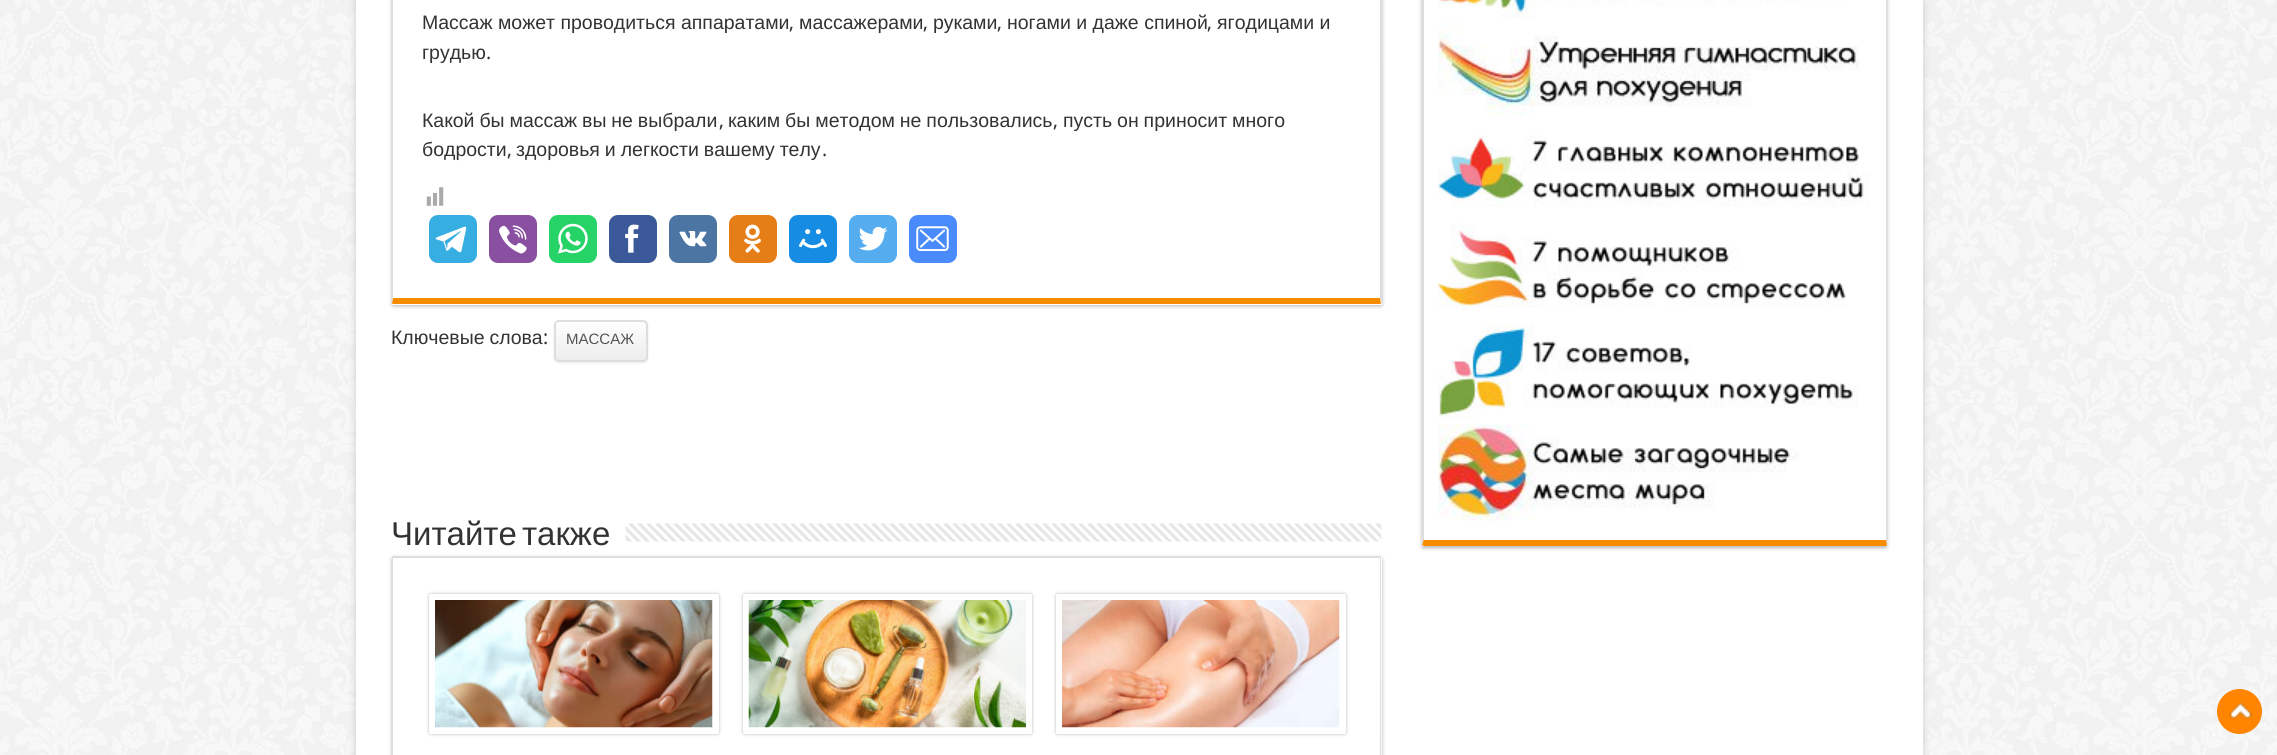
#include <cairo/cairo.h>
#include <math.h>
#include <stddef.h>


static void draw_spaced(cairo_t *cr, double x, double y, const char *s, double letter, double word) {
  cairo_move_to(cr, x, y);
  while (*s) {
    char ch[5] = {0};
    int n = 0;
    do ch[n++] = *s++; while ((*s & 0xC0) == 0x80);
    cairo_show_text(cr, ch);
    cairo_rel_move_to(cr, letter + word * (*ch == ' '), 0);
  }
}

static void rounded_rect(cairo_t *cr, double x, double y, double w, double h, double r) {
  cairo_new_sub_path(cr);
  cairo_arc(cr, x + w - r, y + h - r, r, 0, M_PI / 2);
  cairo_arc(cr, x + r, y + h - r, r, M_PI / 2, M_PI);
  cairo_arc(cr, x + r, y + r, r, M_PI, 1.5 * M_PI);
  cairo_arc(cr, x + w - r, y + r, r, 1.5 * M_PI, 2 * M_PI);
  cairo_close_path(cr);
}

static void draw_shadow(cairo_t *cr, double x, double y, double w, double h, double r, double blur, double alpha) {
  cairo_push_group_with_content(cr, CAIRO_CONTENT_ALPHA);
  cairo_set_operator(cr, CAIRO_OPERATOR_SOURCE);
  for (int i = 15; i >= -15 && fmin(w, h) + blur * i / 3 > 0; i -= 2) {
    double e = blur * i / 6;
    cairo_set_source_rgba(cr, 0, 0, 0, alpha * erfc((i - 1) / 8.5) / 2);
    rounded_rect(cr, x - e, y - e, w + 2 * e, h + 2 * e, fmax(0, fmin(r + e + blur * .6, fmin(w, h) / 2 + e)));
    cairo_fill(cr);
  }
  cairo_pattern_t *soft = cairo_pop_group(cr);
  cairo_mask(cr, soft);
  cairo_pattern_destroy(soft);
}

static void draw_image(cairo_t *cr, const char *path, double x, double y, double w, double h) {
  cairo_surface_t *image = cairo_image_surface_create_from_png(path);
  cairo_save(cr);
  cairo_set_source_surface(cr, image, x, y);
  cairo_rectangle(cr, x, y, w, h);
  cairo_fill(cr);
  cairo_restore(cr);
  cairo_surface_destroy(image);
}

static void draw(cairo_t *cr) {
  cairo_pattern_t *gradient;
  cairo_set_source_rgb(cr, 1, 1, 1);
  cairo_paint(cr);
  draw_image(cr, "images/1.png", 0, 0, 2277, 755);
  cairo_set_source_rgb(cr, 202 / 255.0, 202 / 255.0, 202 / 255.0);
  draw_shadow(cr, 356, -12, 1567, 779, 0, 4, 1);
  cairo_set_source_rgb(cr, 1, 1, 1);
  cairo_rectangle(cr, 356, 0, 1567, 755);
  cairo_fill(cr);
  cairo_save(cr);
  cairo_set_fill_rule(cr, CAIRO_FILL_RULE_EVEN_ODD);
  cairo_new_path(cr);
  cairo_move_to(cr, 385, 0);
  cairo_line_to(cr, 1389, 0);
  cairo_line_to(cr, 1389, 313);
  cairo_line_to(cr, 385, 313);
  cairo_close_path(cr);
  cairo_move_to(cr, 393.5, -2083);
  cairo_line_to(cr, 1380.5, -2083);
  cairo_curve_to(cr, 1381.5, -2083, 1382, -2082.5, 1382, -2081.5);
  cairo_line_to(cr, 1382, 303.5);
  cairo_curve_to(cr, 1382, 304.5, 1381.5, 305, 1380.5, 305);
  cairo_line_to(cr, 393.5, 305);
  cairo_curve_to(cr, 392.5, 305, 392, 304.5, 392, 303.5);
  cairo_line_to(cr, 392, -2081.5);
  cairo_curve_to(cr, 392, -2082.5, 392.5, -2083, 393.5, -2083);
  cairo_close_path(cr);
  cairo_clip(cr);
  cairo_set_source_rgb(cr, 181 / 255.0, 181 / 255.0, 181 / 255.0);
  draw_shadow(cr, 392, -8, 990, 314, 1.5, 2, 1);
  cairo_restore(cr);
  cairo_set_source_rgb(cr, 221 / 255.0, 221 / 255.0, 221 / 255.0);
  cairo_new_path(cr);
  cairo_move_to(cr, 1382, 304);
  cairo_line_to(cr, 1380, 298);
  cairo_line_to(cr, 1380, -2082);
  cairo_line_to(cr, 1381, -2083);
  cairo_close_path(cr);
  cairo_fill(cr);
  cairo_set_source_rgb(cr, 248 / 255.0, 140 / 255.0, 0);
  cairo_new_path(cr);
  cairo_move_to(cr, 1381, 304);
  cairo_line_to(cr, 393, 304);
  cairo_curve_to(cr, 391, 304, 393, 299, 393, 298);
  cairo_line_to(cr, 1380, 298);
  cairo_close_path(cr);
  cairo_fill(cr);
  cairo_set_source_rgb(cr, 221 / 255.0, 221 / 255.0, 221 / 255.0);
  cairo_new_path(cr);
  cairo_move_to(cr, 393, -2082);
  cairo_line_to(cr, 393, 298);
  cairo_line_to(cr, 392, 302);
  cairo_line_to(cr, 392, -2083);
  cairo_close_path(cr);
  cairo_fill(cr);
  draw_image(cr, "images/2.png", 426, 187, 18, 19);
  cairo_set_source_rgb(cr, 55 / 255.0, 174 / 255.0, 226 / 255.0);
  rounded_rect(cr, 429, 215, 48, 48, 9);
  cairo_fill(cr);
  draw_image(cr, "images/3.png", 435, 226, 32, 27);
  cairo_set_source_rgb(cr, 137 / 255.0, 80 / 255.0, 161 / 255.0);
  rounded_rect(cr, 489, 215, 48, 48, 9);
  cairo_fill(cr);
  draw_image(cr, "images/4.png", 499, 225, 28, 29);
  cairo_set_source_rgb(cr, 37 / 255.0, 211 / 255.0, 102 / 255.0);
  rounded_rect(cr, 549, 215, 48, 48, 9);
  cairo_fill(cr);
  draw_image(cr, "images/5.png", 558, 223, 30, 31);
  cairo_set_source_rgb(cr, 59 / 255.0, 89 / 255.0, 152 / 255.0);
  rounded_rect(cr, 609, 215, 48, 48, 9);
  cairo_fill(cr);
  draw_image(cr, "images/6.png", 625, 224, 14, 29);
  cairo_set_source_rgb(cr, 77 / 255.0, 117 / 255.0, 163 / 255.0);
  rounded_rect(cr, 669, 215, 48, 48, 9);
  cairo_fill(cr);
  draw_image(cr, "images/7.png", 679, 231, 28, 16);
  cairo_set_source_rgb(cr, 230 / 255.0, 126 / 255.0, 23 / 255.0);
  rounded_rect(cr, 729, 215, 48, 48, 9);
  cairo_fill(cr);
  draw_image(cr, "images/8.png", 744, 224, 17, 29);
  cairo_set_source_rgb(cr, 22 / 255.0, 141 / 255.0, 226 / 255.0);
  rounded_rect(cr, 789, 215, 48, 48, 9);
  cairo_fill(cr);
  draw_image(cr, "images/9.png", 799, 229, 28, 20);
  cairo_set_source_rgb(cr, 85 / 255.0, 172 / 255.0, 238 / 255.0);
  rounded_rect(cr, 849, 215, 48, 48, 9);
  cairo_fill(cr);
  draw_image(cr, "images/10.png", 858, 226, 30, 25);
  cairo_set_source_rgb(cr, 73 / 255.0, 139 / 255.0, 250 / 255.0);
  rounded_rect(cr, 909, 215, 48, 48, 9);
  cairo_fill(cr);
  draw_image(cr, "images/11.png", 916, 226, 33, 25);
  cairo_set_source_rgb(cr, 234 / 255.0, 234 / 255.0, 234 / 255.0);
  draw_shadow(cr, 554, 321, 94, 42, 5, 1, 1);
  cairo_save(cr);
  rounded_rect(cr, 554, 320, 94, 42, 5);
  cairo_clip(cr);
  gradient = cairo_pattern_create_linear(601, 321, 601, 360);
  cairo_pattern_add_color_stop_rgba(gradient, 0, 1, 1, 1, 1);
  cairo_pattern_add_color_stop_rgba(gradient, 0.47, 246 / 255.0, 246 / 255.0, 246 / 255.0, 1);
  cairo_pattern_add_color_stop_rgba(gradient, 1, 237 / 255.0, 237 / 255.0, 237 / 255.0, 1);
  cairo_set_source(cr, gradient);
  cairo_pattern_destroy(gradient);
  cairo_rectangle(cr, 554, 321, 94, 39);
  cairo_fill(cr);
  cairo_restore(cr);
  rounded_rect(cr, 555, 321, 92, 40, 4);
  cairo_set_source_rgb(cr, 222 / 255.0, 222 / 255.0, 222 / 255.0);
  cairo_stroke(cr);
  draw_image(cr, "images/12.png", 625, 523, 757, 19);
  cairo_save(cr);
  cairo_set_fill_rule(cr, CAIRO_FILL_RULE_EVEN_ODD);
  cairo_new_path(cr);
  cairo_move_to(cr, 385, 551);
  cairo_line_to(cr, 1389, 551);
  cairo_line_to(cr, 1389, 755);
  cairo_line_to(cr, 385, 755);
  cairo_close_path(cr);
  cairo_move_to(cr, 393.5, 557);
  cairo_line_to(cr, 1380.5, 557);
  cairo_curve_to(cr, 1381.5, 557, 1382, 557.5, 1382, 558.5);
  cairo_line_to(cr, 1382, 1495.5);
  cairo_curve_to(cr, 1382, 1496.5, 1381.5, 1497, 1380.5, 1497);
  cairo_line_to(cr, 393.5, 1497);
  cairo_curve_to(cr, 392.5, 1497, 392, 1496.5, 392, 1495.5);
  cairo_line_to(cr, 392, 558.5);
  cairo_curve_to(cr, 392, 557.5, 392.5, 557, 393.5, 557);
  cairo_close_path(cr);
  cairo_clip(cr);
  cairo_set_source_rgb(cr, 181 / 255.0, 181 / 255.0, 181 / 255.0);
  draw_shadow(cr, 392, 558, 990, 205, 1.5, 2, 1);
  cairo_restore(cr);
  cairo_set_source_rgb(cr, 221 / 255.0, 221 / 255.0, 221 / 255.0);
  cairo_new_path(cr);
  cairo_move_to(cr, 393, 558);
  cairo_line_to(cr, 392, 557);
  cairo_line_to(cr, 392, 556);
  cairo_line_to(cr, 1381, 556);
  cairo_line_to(cr, 1380, 558);
  cairo_close_path(cr);
  cairo_fill(cr);
  cairo_new_path(cr);
  cairo_move_to(cr, 1382, 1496);
  cairo_line_to(cr, 1380, 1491);
  cairo_line_to(cr, 1380, 558);
  cairo_line_to(cr, 1381, 557);
  cairo_close_path(cr);
  cairo_fill(cr);
  cairo_new_path(cr);
  cairo_move_to(cr, 393, 558);
  cairo_line_to(cr, 393, 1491);
  cairo_line_to(cr, 392, 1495);
  cairo_line_to(cr, 392, 557);
  cairo_close_path(cr);
  cairo_fill(cr);
  cairo_set_source_rgb(cr, 181 / 255.0, 181 / 255.0, 181 / 255.0);
  draw_shadow(cr, 429, 594, 290, 140, 1.5, 1.5, 1);
  cairo_set_source_rgb(cr, 1, 1, 1);
  rounded_rect(cr, 429, 594, 290, 140, 1.5);
  cairo_fill(cr);
  draw_image(cr, "images/13.png", 435, 600, 278, 128);
  cairo_set_source_rgb(cr, 181 / 255.0, 181 / 255.0, 181 / 255.0);
  draw_shadow(cr, 743, 594, 289, 140, 1.5, 1.5, 1);
  cairo_set_source_rgb(cr, 1, 1, 1);
  rounded_rect(cr, 743, 594, 289, 140, 1.5);
  cairo_fill(cr);
  draw_image(cr, "images/14.png", 748, 600, 278, 128);
  cairo_set_source_rgb(cr, 181 / 255.0, 181 / 255.0, 181 / 255.0);
  draw_shadow(cr, 1056, 594, 290, 140, 1.5, 1.5, 1);
  cairo_set_source_rgb(cr, 1, 1, 1);
  rounded_rect(cr, 1056, 594, 290, 140, 1.5);
  cairo_fill(cr);
  draw_image(cr, "images/15.png", 1062, 600, 278, 128);
  cairo_save(cr);
  cairo_set_fill_rule(cr, CAIRO_FILL_RULE_EVEN_ODD);
  cairo_new_path(cr);
  cairo_move_to(cr, 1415, 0);
  cairo_line_to(cr, 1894, 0);
  cairo_line_to(cr, 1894, 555);
  cairo_line_to(cr, 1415, 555);
  cairo_close_path(cr);
  cairo_move_to(cr, 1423.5, -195);
  cairo_line_to(cr, 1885.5, -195);
  cairo_curve_to(cr, 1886.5, -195, 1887, -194.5, 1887, -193.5);
  cairo_line_to(cr, 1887, 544.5);
  cairo_curve_to(cr, 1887, 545.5, 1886.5, 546, 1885.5, 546);
  cairo_line_to(cr, 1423.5, 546);
  cairo_curve_to(cr, 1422.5, 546, 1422, 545.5, 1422, 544.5);
  cairo_line_to(cr, 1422, -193.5);
  cairo_curve_to(cr, 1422, -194.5, 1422.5, -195, 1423.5, -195);
  cairo_close_path(cr);
  cairo_clip(cr);
  cairo_set_source_rgb(cr, 181 / 255.0, 181 / 255.0, 181 / 255.0);
  draw_shadow(cr, 1422, -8, 465, 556, 1.5, 2, 1);
  cairo_restore(cr);
  cairo_set_source_rgb(cr, 221 / 255.0, 221 / 255.0, 221 / 255.0);
  cairo_new_path(cr);
  cairo_move_to(cr, 1887, 544);
  cairo_line_to(cr, 1887, -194);
  cairo_line_to(cr, 1886, -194);
  cairo_line_to(cr, 1886, 540);
  cairo_line_to(cr, 1887, 545);
  cairo_close_path(cr);
  cairo_fill(cr);
  cairo_set_source_rgb(cr, 248 / 255.0, 140 / 255.0, 0);
  cairo_new_path(cr);
  cairo_move_to(cr, 1424, 546);
  cairo_line_to(cr, 1886, 546);
  cairo_line_to(cr, 1887, 545);
  cairo_line_to(cr, 1886, 540);
  cairo_line_to(cr, 1424, 540);
  cairo_line_to(cr, 1424, 538);
  cairo_line_to(cr, 1422, 545);
  cairo_close_path(cr);
  cairo_fill(cr);
  cairo_set_source_rgb(cr, 221 / 255.0, 221 / 255.0, 221 / 255.0);
  cairo_new_path(cr);
  cairo_move_to(cr, 1422, -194);
  cairo_line_to(cr, 1422, 545);
  cairo_line_to(cr, 1424, 538);
  cairo_line_to(cr, 1424, -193);
  cairo_line_to(cr, 1423, -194);
  cairo_close_path(cr);
  cairo_fill(cr);
  draw_image(cr, "images/16.png", 1438, 0, 407, 18);
  draw_image(cr, "images/17.png", 1438, 22, 421, 96);
  draw_image(cr, "images/18.png", 1438, 135, 432, 72);
  draw_image(cr, "images/19.png", 1438, 223, 408, 85);
  draw_image(cr, "images/20.png", 1438, 324, 421, 96);
  draw_image(cr, "images/21.png", 1438, 424, 361, 97);
  cairo_set_source_rgb(cr, 1, 133 / 255.0, 0);
  cairo_arc(cr, 2239.5, 711.5, 22.5, 0, 2 * M_PI);
  cairo_fill(cr);
  draw_image(cr, "images/22.png", 2229, 702, 24, 17);
  cairo_select_font_face(cr, "Liberation Sans", CAIRO_FONT_SLANT_NORMAL, CAIRO_FONT_WEIGHT_NORMAL);
  cairo_set_font_size(cr, 19.5);
  cairo_set_source_rgb(cr, 51 / 255.0, 51 / 255.0, 51 / 255.0);
  cairo_move_to(cr, 422, 29);
  cairo_show_text(cr, "Массаж может проводиться аппаратами");
  cairo_select_font_face(cr, "Droid Sans", CAIRO_FONT_SLANT_NORMAL, CAIRO_FONT_WEIGHT_NORMAL);
  cairo_move_to(cr, 789, 29);
  cairo_show_text(cr, ",");
  cairo_select_font_face(cr, "Liberation Sans", CAIRO_FONT_SLANT_NORMAL, CAIRO_FONT_WEIGHT_NORMAL);
  cairo_move_to(cr, 799, 29);
  cairo_show_text(cr, "массажерами");
  cairo_select_font_face(cr, "Droid Sans", CAIRO_FONT_SLANT_NORMAL, CAIRO_FONT_WEIGHT_NORMAL);
  cairo_move_to(cr, 923, 29);
  cairo_show_text(cr, ",");
  cairo_select_font_face(cr, "Liberation Sans", CAIRO_FONT_SLANT_NORMAL, CAIRO_FONT_WEIGHT_NORMAL);
  cairo_move_to(cr, 933, 29);
  cairo_show_text(cr, "руками");
  cairo_select_font_face(cr, "Droid Sans", CAIRO_FONT_SLANT_NORMAL, CAIRO_FONT_WEIGHT_NORMAL);
  cairo_move_to(cr, 997, 29);
  cairo_show_text(cr, ",");
  cairo_select_font_face(cr, "Liberation Sans", CAIRO_FONT_SLANT_NORMAL, CAIRO_FONT_WEIGHT_NORMAL);
  cairo_move_to(cr, 1007, 29);
  cairo_show_text(cr, "ногами и даже спиной");
  cairo_select_font_face(cr, "Droid Sans", CAIRO_FONT_SLANT_NORMAL, CAIRO_FONT_WEIGHT_NORMAL);
  cairo_move_to(cr, 1207, 29);
  cairo_show_text(cr, ",");
  cairo_select_font_face(cr, "Liberation Sans", CAIRO_FONT_SLANT_NORMAL, CAIRO_FONT_WEIGHT_NORMAL);
  cairo_move_to(cr, 1217, 29);
  cairo_show_text(cr, "ягодицами и");
  cairo_move_to(cr, 422, 59);
  cairo_show_text(cr, "грудью");
  cairo_select_font_face(cr, "Droid Sans", CAIRO_FONT_SLANT_NORMAL, CAIRO_FONT_WEIGHT_NORMAL);
  cairo_move_to(cr, 486, 59);
  cairo_show_text(cr, ".");
  cairo_select_font_face(cr, "Liberation Sans", CAIRO_FONT_SLANT_NORMAL, CAIRO_FONT_WEIGHT_NORMAL);
  draw_spaced(cr, 422, 127, "Какой бы массаж вы не выбрали", 0, -0.5);
  cairo_select_font_face(cr, "Droid Sans", CAIRO_FONT_SLANT_NORMAL, CAIRO_FONT_WEIGHT_NORMAL);
  cairo_move_to(cr, 719, 127);
  cairo_show_text(cr, ",");
  cairo_select_font_face(cr, "Liberation Sans", CAIRO_FONT_SLANT_NORMAL, CAIRO_FONT_WEIGHT_NORMAL);
  draw_spaced(cr, 728, 127, "каким бы методом не пользовались", 0, -0.5);
  cairo_select_font_face(cr, "Droid Sans", CAIRO_FONT_SLANT_NORMAL, CAIRO_FONT_WEIGHT_NORMAL);
  cairo_move_to(cr, 1053, 127);
  cairo_show_text(cr, ",");
  cairo_select_font_face(cr, "Liberation Sans", CAIRO_FONT_SLANT_NORMAL, CAIRO_FONT_WEIGHT_NORMAL);
  draw_spaced(cr, 1063, 127, "пусть он приносит много", 0, -0.5);
  cairo_move_to(cr, 422, 156);
  cairo_show_text(cr, "бодрости");
  cairo_select_font_face(cr, "Droid Sans", CAIRO_FONT_SLANT_NORMAL, CAIRO_FONT_WEIGHT_NORMAL);
  cairo_move_to(cr, 507, 156);
  cairo_show_text(cr, ",");
  cairo_select_font_face(cr, "Liberation Sans", CAIRO_FONT_SLANT_NORMAL, CAIRO_FONT_WEIGHT_NORMAL);
  draw_spaced(cr, 516, 156, "здоровья и легкости вашему телу", 0, -0.5);
  cairo_select_font_face(cr, "Droid Sans", CAIRO_FONT_SLANT_NORMAL, CAIRO_FONT_WEIGHT_NORMAL);
  cairo_move_to(cr, 822, 156);
  cairo_show_text(cr, ".");
  cairo_select_font_face(cr, "Liberation Sans", CAIRO_FONT_SLANT_NORMAL, CAIRO_FONT_WEIGHT_NORMAL);
  draw_spaced(cr, 391, 344, "Ключевые слова", 0, -0.5);
  cairo_select_font_face(cr, "Droid Sans", CAIRO_FONT_SLANT_NORMAL, CAIRO_FONT_WEIGHT_NORMAL);
  cairo_move_to(cr, 543, 344);
  cairo_show_text(cr, ":");
  cairo_select_font_face(cr, "Liberation Sans", CAIRO_FONT_SLANT_NORMAL, CAIRO_FONT_WEIGHT_NORMAL);
  cairo_set_font_size(cr, 15);
  cairo_set_source_rgb(cr, 85 / 255.0, 85 / 255.0, 85 / 255.0);
  cairo_move_to(cr, 566, 344);
  cairo_show_text(cr, "МАССАЖ");
  cairo_set_font_size(cr, 33);
  cairo_set_source_rgb(cr, 51 / 255.0, 51 / 255.0, 51 / 255.0);
  draw_spaced(cr, 391, 545, "Читайте также", 0, -4);
}

int main(void) {
  cairo_surface_t *surface = cairo_image_surface_create(CAIRO_FORMAT_RGB24, 2277, 755);
  cairo_t *cr = cairo_create(surface);
  cairo_font_options_t *options = cairo_font_options_create();
  cairo_font_options_set_hint_metrics(options, CAIRO_HINT_METRICS_OFF);
  cairo_font_options_set_hint_style(options, CAIRO_HINT_STYLE_NONE);
  cairo_set_font_options(cr, options);
  cairo_set_miter_limit(cr, 4);
  draw(cr);
  cairo_surface_write_to_png(surface, "out.png");
  cairo_font_options_destroy(options);
  cairo_destroy(cr);
  cairo_surface_destroy(surface);
  return 0;
}
